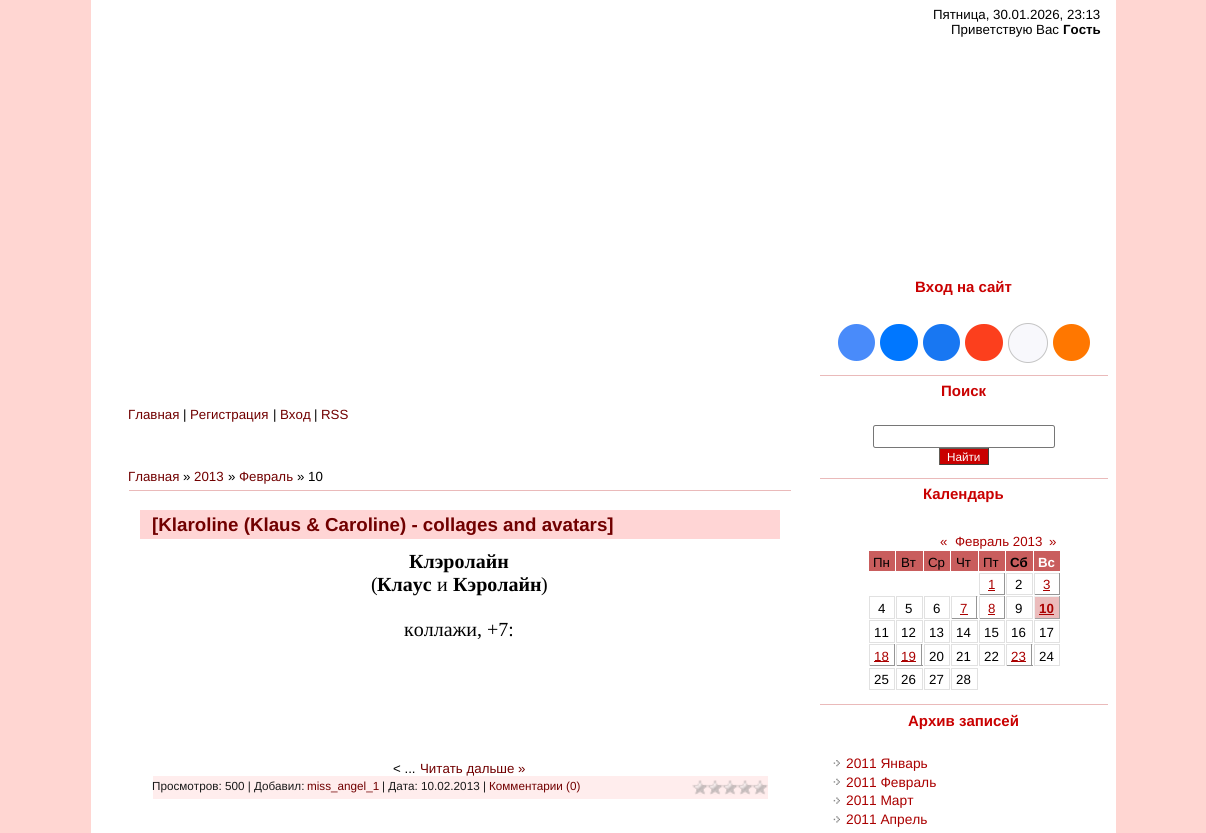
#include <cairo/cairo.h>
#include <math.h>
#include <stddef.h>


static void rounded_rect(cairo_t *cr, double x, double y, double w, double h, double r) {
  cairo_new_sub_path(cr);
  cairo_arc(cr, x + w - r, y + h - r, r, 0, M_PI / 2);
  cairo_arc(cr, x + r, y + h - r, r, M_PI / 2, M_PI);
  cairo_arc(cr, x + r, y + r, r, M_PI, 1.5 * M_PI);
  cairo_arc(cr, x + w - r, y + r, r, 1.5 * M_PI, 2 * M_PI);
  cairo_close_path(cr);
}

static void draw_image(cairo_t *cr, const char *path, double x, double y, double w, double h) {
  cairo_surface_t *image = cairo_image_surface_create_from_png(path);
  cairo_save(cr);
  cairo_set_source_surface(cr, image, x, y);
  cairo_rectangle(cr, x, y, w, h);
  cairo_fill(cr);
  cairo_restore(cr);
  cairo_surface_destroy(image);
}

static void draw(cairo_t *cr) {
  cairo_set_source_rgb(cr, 1, 214 / 255.0, 210 / 255.0);
  cairo_paint(cr);
  cairo_set_source_rgb(cr, 1, 1, 1);
  cairo_rectangle(cr, 91, 0, 1025, 833);
  cairo_fill(cr);
  cairo_set_source_rgb(cr, 234 / 255.0, 186 / 255.0, 186 / 255.0);
  cairo_rectangle(cr, 129, 490, 662, 1);
  cairo_fill(cr);
  cairo_set_source_rgb(cr, 1, 213 / 255.0, 213 / 255.0);
  cairo_rectangle(cr, 140, 510, 640, 29);
  cairo_fill(cr);
  cairo_set_source_rgb(cr, 1, 237 / 255.0, 237 / 255.0);
  cairo_rectangle(cr, 153, 776, 615, 23);
  cairo_fill(cr);
  draw_image(cr, "images/1.png", 692, 780, 76, 15);
  cairo_set_source_rgb(cr, 234 / 255.0, 186 / 255.0, 186 / 255.0);
  cairo_rectangle(cr, 820, 375, 288, 1);
  cairo_fill(cr);
  cairo_set_source_rgb(cr, 73 / 255.0, 139 / 255.0, 250 / 255.0);
  cairo_arc(cr, 856.5, 342.5, 18.5, 0, 2 * M_PI);
  cairo_fill(cr);
  cairo_set_source_rgb(cr, 0, 119 / 255.0, 1);
  rounded_rect(cr, 880, 324, 38, 37, 18.5);
  cairo_fill(cr);
  cairo_set_source_rgb(cr, 24 / 255.0, 119 / 255.0, 242 / 255.0);
  cairo_arc(cr, 941.5, 342.5, 18.5, 0, 2 * M_PI);
  cairo_fill(cr);
  cairo_set_source_rgb(cr, 252 / 255.0, 63 / 255.0, 29 / 255.0);
  rounded_rect(cr, 965, 324, 38, 37, 18.5);
  cairo_fill(cr);
  cairo_set_source_rgb(cr, 248 / 255.0, 248 / 255.0, 252 / 255.0);
  cairo_arc(cr, 1028, 343, 19.5, 0, 2 * M_PI);
  cairo_fill_preserve(cr);
  cairo_set_source_rgb(cr, 196 / 255.0, 196 / 255.0, 196 / 255.0);
  cairo_set_line_width(cr, 1);
  cairo_stroke(cr);
  cairo_set_source_rgb(cr, 1, 119 / 255.0, 0);
  cairo_arc(cr, 1071.5, 342.5, 18.5, 0, 2 * M_PI);
  cairo_fill(cr);
  cairo_set_source_rgb(cr, 234 / 255.0, 186 / 255.0, 186 / 255.0);
  cairo_rectangle(cr, 820, 478, 288, 1);
  cairo_fill(cr);
  rounded_rect(cr, 873.5, 425.5, 181, 22, 2);
  cairo_set_source_rgb(cr, 118 / 255.0, 118 / 255.0, 118 / 255.0);
  cairo_stroke(cr);
  cairo_set_source_rgb(cr, 201 / 255.0, 0, 0);
  cairo_rectangle(cr, 940, 449, 48, 15);
  cairo_fill(cr);
  cairo_set_source_rgb(cr, 97 / 255.0, 94 / 255.0, 88 / 255.0);
  cairo_rectangle(cr, 939, 448, 50, 1);
  cairo_fill(cr);
  cairo_set_source_rgb(cr, 65 / 255.0, 63 / 255.0, 59 / 255.0);
  cairo_rectangle(cr, 988, 448, 1, 17);
  cairo_fill(cr);
  cairo_rectangle(cr, 939, 464, 50, 1);
  cairo_fill(cr);
  cairo_set_source_rgb(cr, 97 / 255.0, 94 / 255.0, 88 / 255.0);
  cairo_rectangle(cr, 939, 448, 1, 17);
  cairo_fill(cr);
  cairo_set_source_rgb(cr, 234 / 255.0, 186 / 255.0, 186 / 255.0);
  cairo_rectangle(cr, 820, 704, 288, 1);
  cairo_fill(cr);
  cairo_set_source_rgb(cr, 201 / 255.0, 93 / 255.0, 93 / 255.0);
  cairo_rectangle(cr, 869, 551, 26, 20);
  cairo_fill(cr);
  cairo_rectangle(cr, 896, 551, 27, 20);
  cairo_fill(cr);
  cairo_rectangle(cr, 924, 551, 26, 20);
  cairo_fill(cr);
  cairo_rectangle(cr, 951, 551, 27, 20);
  cairo_fill(cr);
  cairo_rectangle(cr, 979, 551, 26, 20);
  cairo_fill(cr);
  cairo_rectangle(cr, 1006, 551, 27, 20);
  cairo_fill(cr);
  cairo_rectangle(cr, 1034, 551, 26, 20);
  cairo_fill(cr);
  cairo_set_source_rgb(cr, 225 / 255.0, 225 / 255.0, 225 / 255.0);
  cairo_rectangle(cr, 979, 573, 26, 1);
  cairo_fill(cr);
  cairo_set_source_rgb(cr, 150 / 255.0, 150 / 255.0, 150 / 255.0);
  cairo_rectangle(cr, 1004, 573, 1, 22);
  cairo_fill(cr);
  cairo_rectangle(cr, 979, 594, 26, 1);
  cairo_fill(cr);
  cairo_set_source_rgb(cr, 225 / 255.0, 225 / 255.0, 225 / 255.0);
  cairo_rectangle(cr, 979, 573, 1, 22);
  cairo_fill(cr);
  cairo_set_source_rgb(cr, 170 / 255.0, 0, 0);
  cairo_rectangle(cr, 988, 590, 7, 1);
  cairo_fill(cr);
  cairo_rectangle(cr, 1006.5, 573.5, 26, 21);
  cairo_set_source_rgb(cr, 225 / 255.0, 225 / 255.0, 225 / 255.0);
  cairo_stroke(cr);
  cairo_rectangle(cr, 1034, 573, 26, 1);
  cairo_fill(cr);
  cairo_set_source_rgb(cr, 150 / 255.0, 150 / 255.0, 150 / 255.0);
  cairo_rectangle(cr, 1059, 573, 1, 22);
  cairo_fill(cr);
  cairo_rectangle(cr, 1034, 594, 26, 1);
  cairo_fill(cr);
  cairo_set_source_rgb(cr, 225 / 255.0, 225 / 255.0, 225 / 255.0);
  cairo_rectangle(cr, 1034, 573, 1, 22);
  cairo_fill(cr);
  cairo_set_source_rgb(cr, 170 / 255.0, 0, 0);
  cairo_rectangle(cr, 1043, 590, 7, 1);
  cairo_fill(cr);
  cairo_rectangle(cr, 869.5, 596.5, 25, 22);
  cairo_set_source_rgb(cr, 225 / 255.0, 225 / 255.0, 225 / 255.0);
  cairo_stroke(cr);
  cairo_rectangle(cr, 896.5, 596.5, 26, 22);
  cairo_stroke(cr);
  cairo_rectangle(cr, 924.5, 596.5, 25, 22);
  cairo_stroke(cr);
  cairo_rectangle(cr, 951, 596, 27, 1);
  cairo_fill(cr);
  cairo_set_source_rgb(cr, 150 / 255.0, 150 / 255.0, 150 / 255.0);
  cairo_rectangle(cr, 976, 596, 1, 23);
  cairo_fill(cr);
  cairo_rectangle(cr, 951, 618, 27, 1);
  cairo_fill(cr);
  cairo_set_source_rgb(cr, 225 / 255.0, 225 / 255.0, 225 / 255.0);
  cairo_rectangle(cr, 951, 596, 1, 23);
  cairo_fill(cr);
  cairo_set_source_rgb(cr, 170 / 255.0, 0, 0);
  cairo_rectangle(cr, 960, 614, 8, 1);
  cairo_fill(cr);
  cairo_set_source_rgb(cr, 225 / 255.0, 225 / 255.0, 225 / 255.0);
  cairo_rectangle(cr, 979, 596, 26, 1);
  cairo_fill(cr);
  cairo_set_source_rgb(cr, 150 / 255.0, 150 / 255.0, 150 / 255.0);
  cairo_rectangle(cr, 1004, 596, 1, 23);
  cairo_fill(cr);
  cairo_rectangle(cr, 979, 618, 26, 1);
  cairo_fill(cr);
  cairo_set_source_rgb(cr, 225 / 255.0, 225 / 255.0, 225 / 255.0);
  cairo_rectangle(cr, 979, 596, 1, 23);
  cairo_fill(cr);
  cairo_set_source_rgb(cr, 170 / 255.0, 0, 0);
  cairo_rectangle(cr, 988, 614, 7, 1);
  cairo_fill(cr);
  cairo_rectangle(cr, 1006.5, 596.5, 26, 22);
  cairo_set_source_rgb(cr, 225 / 255.0, 225 / 255.0, 225 / 255.0);
  cairo_stroke(cr);
  cairo_set_source_rgb(cr, 235 / 255.0, 188 / 255.0, 188 / 255.0);
  cairo_rectangle(cr, 1035, 597, 24, 21);
  cairo_fill(cr);
  cairo_set_source_rgb(cr, 238 / 255.0, 238 / 255.0, 238 / 255.0);
  cairo_rectangle(cr, 1034, 596, 26, 1);
  cairo_fill(cr);
  cairo_set_source_rgb(cr, 159 / 255.0, 159 / 255.0, 159 / 255.0);
  cairo_rectangle(cr, 1059, 596, 1, 23);
  cairo_fill(cr);
  cairo_rectangle(cr, 1034, 618, 26, 1);
  cairo_fill(cr);
  cairo_set_source_rgb(cr, 238 / 255.0, 238 / 255.0, 238 / 255.0);
  cairo_rectangle(cr, 1034, 596, 1, 23);
  cairo_fill(cr);
  cairo_set_source_rgb(cr, 170 / 255.0, 0, 0);
  cairo_rectangle(cr, 1039, 614, 15, 1);
  cairo_fill(cr);
  cairo_rectangle(cr, 869.5, 620.5, 25, 22);
  cairo_set_source_rgb(cr, 225 / 255.0, 225 / 255.0, 225 / 255.0);
  cairo_stroke(cr);
  cairo_rectangle(cr, 896.5, 620.5, 26, 22);
  cairo_stroke(cr);
  cairo_rectangle(cr, 924.5, 620.5, 25, 22);
  cairo_stroke(cr);
  cairo_rectangle(cr, 951.5, 620.5, 26, 22);
  cairo_stroke(cr);
  cairo_rectangle(cr, 979.5, 620.5, 25, 22);
  cairo_stroke(cr);
  cairo_rectangle(cr, 1006.5, 620.5, 26, 22);
  cairo_stroke(cr);
  cairo_rectangle(cr, 1034.5, 620.5, 25, 22);
  cairo_stroke(cr);
  cairo_rectangle(cr, 869, 644, 26, 1);
  cairo_fill(cr);
  cairo_set_source_rgb(cr, 150 / 255.0, 150 / 255.0, 150 / 255.0);
  cairo_rectangle(cr, 894, 644, 1, 22);
  cairo_fill(cr);
  cairo_rectangle(cr, 869, 665, 26, 1);
  cairo_fill(cr);
  cairo_set_source_rgb(cr, 225 / 255.0, 225 / 255.0, 225 / 255.0);
  cairo_rectangle(cr, 869, 644, 1, 22);
  cairo_fill(cr);
  cairo_set_source_rgb(cr, 170 / 255.0, 0, 0);
  cairo_rectangle(cr, 874, 661, 15, 1);
  cairo_fill(cr);
  cairo_set_source_rgb(cr, 225 / 255.0, 225 / 255.0, 225 / 255.0);
  cairo_rectangle(cr, 896, 644, 27, 1);
  cairo_fill(cr);
  cairo_set_source_rgb(cr, 150 / 255.0, 150 / 255.0, 150 / 255.0);
  cairo_rectangle(cr, 921, 644, 1, 22);
  cairo_fill(cr);
  cairo_rectangle(cr, 896, 665, 27, 1);
  cairo_fill(cr);
  cairo_set_source_rgb(cr, 225 / 255.0, 225 / 255.0, 225 / 255.0);
  cairo_rectangle(cr, 896, 644, 1, 22);
  cairo_fill(cr);
  cairo_set_source_rgb(cr, 170 / 255.0, 0, 0);
  cairo_rectangle(cr, 901, 661, 15, 1);
  cairo_fill(cr);
  cairo_rectangle(cr, 924.5, 644.5, 25, 21);
  cairo_set_source_rgb(cr, 225 / 255.0, 225 / 255.0, 225 / 255.0);
  cairo_stroke(cr);
  cairo_rectangle(cr, 951.5, 644.5, 26, 21);
  cairo_stroke(cr);
  cairo_rectangle(cr, 979.5, 644.5, 25, 21);
  cairo_stroke(cr);
  cairo_rectangle(cr, 1006, 644, 27, 1);
  cairo_fill(cr);
  cairo_set_source_rgb(cr, 150 / 255.0, 150 / 255.0, 150 / 255.0);
  cairo_rectangle(cr, 1031, 644, 1, 22);
  cairo_fill(cr);
  cairo_rectangle(cr, 1006, 665, 27, 1);
  cairo_fill(cr);
  cairo_set_source_rgb(cr, 225 / 255.0, 225 / 255.0, 225 / 255.0);
  cairo_rectangle(cr, 1006, 644, 1, 22);
  cairo_fill(cr);
  cairo_set_source_rgb(cr, 170 / 255.0, 0, 0);
  cairo_rectangle(cr, 1011, 661, 15, 1);
  cairo_fill(cr);
  cairo_rectangle(cr, 1034.5, 644.5, 25, 21);
  cairo_set_source_rgb(cr, 225 / 255.0, 225 / 255.0, 225 / 255.0);
  cairo_stroke(cr);
  cairo_rectangle(cr, 869.5, 668.5, 25, 21);
  cairo_stroke(cr);
  cairo_rectangle(cr, 896.5, 668.5, 26, 21);
  cairo_stroke(cr);
  cairo_rectangle(cr, 924.5, 668.5, 25, 21);
  cairo_stroke(cr);
  cairo_rectangle(cr, 951.5, 668.5, 26, 21);
  cairo_stroke(cr);
  draw_image(cr, "images/2.png", 833, 760, 7, 7);
  draw_image(cr, "images/3.png", 833, 778, 7, 7);
  draw_image(cr, "images/4.png", 833, 797, 7, 7);
  draw_image(cr, "images/5.png", 833, 816, 7, 7);
  cairo_select_font_face(cr, "Liberation Sans", CAIRO_FONT_SLANT_NORMAL, CAIRO_FONT_WEIGHT_NORMAL);
  cairo_set_font_size(cr, 13.3);
  cairo_set_source_rgb(cr, 113 / 255.0, 0, 0);
  cairo_move_to(cr, 128, 419);
  cairo_show_text(cr, "Главная");
  cairo_set_source_rgb(cr, 0, 0, 0);
  cairo_move_to(cr, 183, 419);
  cairo_show_text(cr, "|");
  cairo_set_source_rgb(cr, 113 / 255.0, 0, 0);
  cairo_move_to(cr, 190, 419);
  cairo_show_text(cr, "Регистрация");
  cairo_set_source_rgb(cr, 0, 0, 0);
  cairo_move_to(cr, 273, 419);
  cairo_show_text(cr, "|");
  cairo_set_source_rgb(cr, 113 / 255.0, 0, 0);
  cairo_move_to(cr, 280, 419);
  cairo_show_text(cr, "Вход");
  cairo_set_source_rgb(cr, 0, 0, 0);
  cairo_move_to(cr, 314, 419);
  cairo_show_text(cr, "|");
  cairo_set_source_rgb(cr, 113 / 255.0, 0, 0);
  cairo_move_to(cr, 321, 419);
  cairo_show_text(cr, "RSS");
  cairo_move_to(cr, 128, 481);
  cairo_show_text(cr, "Главная");
  cairo_set_source_rgb(cr, 0, 0, 0);
  cairo_move_to(cr, 183, 481);
  cairo_show_text(cr, "»");
  cairo_set_source_rgb(cr, 113 / 255.0, 0, 0);
  cairo_move_to(cr, 194, 481);
  cairo_show_text(cr, "2013");
  cairo_set_source_rgb(cr, 0, 0, 0);
  cairo_move_to(cr, 228, 481);
  cairo_show_text(cr, "»");
  cairo_set_source_rgb(cr, 113 / 255.0, 0, 0);
  cairo_move_to(cr, 239, 481);
  cairo_show_text(cr, "Февраль");
  cairo_set_source_rgb(cr, 0, 0, 0);
  cairo_move_to(cr, 297, 481);
  cairo_show_text(cr, "» 10");
  cairo_select_font_face(cr, "Liberation Sans", CAIRO_FONT_SLANT_NORMAL, CAIRO_FONT_WEIGHT_BOLD);
  cairo_set_font_size(cr, 18.75);
  cairo_set_source_rgb(cr, 113 / 255.0, 0, 0);
  cairo_move_to(cr, 152, 531);
  cairo_show_text(cr, "[Klaroline (Klaus & Caroline) - collages and avatars]");
  cairo_select_font_face(cr, "Liberation Serif", CAIRO_FONT_SLANT_NORMAL, CAIRO_FONT_WEIGHT_BOLD);
  cairo_set_font_size(cr, 20);
  cairo_set_source_rgb(cr, 0, 0, 0);
  cairo_move_to(cr, 409, 568);
  cairo_show_text(cr, "Клэролайн");
  cairo_select_font_face(cr, "Liberation Serif", CAIRO_FONT_SLANT_NORMAL, CAIRO_FONT_WEIGHT_NORMAL);
  cairo_move_to(cr, 371, 591);
  cairo_show_text(cr, "(");
  cairo_select_font_face(cr, "Liberation Serif", CAIRO_FONT_SLANT_NORMAL, CAIRO_FONT_WEIGHT_BOLD);
  cairo_move_to(cr, 377, 591);
  cairo_show_text(cr, "Клаус");
  cairo_select_font_face(cr, "Liberation Serif", CAIRO_FONT_SLANT_NORMAL, CAIRO_FONT_WEIGHT_NORMAL);
  cairo_move_to(cr, 437, 591);
  cairo_show_text(cr, "и");
  cairo_select_font_face(cr, "Liberation Serif", CAIRO_FONT_SLANT_NORMAL, CAIRO_FONT_WEIGHT_BOLD);
  cairo_move_to(cr, 453, 591);
  cairo_show_text(cr, "Кэролайн");
  cairo_select_font_face(cr, "Liberation Serif", CAIRO_FONT_SLANT_NORMAL, CAIRO_FONT_WEIGHT_NORMAL);
  cairo_move_to(cr, 541, 591);
  cairo_show_text(cr, ")");
  cairo_move_to(cr, 404, 636);
  cairo_show_text(cr, "коллажи, +7:");
  cairo_select_font_face(cr, "Liberation Sans", CAIRO_FONT_SLANT_NORMAL, CAIRO_FONT_WEIGHT_NORMAL);
  cairo_set_font_size(cr, 13.3);
  cairo_move_to(cr, 393, 773);
  cairo_show_text(cr, "< ...");
  cairo_set_source_rgb(cr, 113 / 255.0, 0, 0);
  cairo_move_to(cr, 420, 773);
  cairo_show_text(cr, "Читать дальше »");
  cairo_set_font_size(cr, 11.7);
  cairo_set_source_rgb(cr, 26 / 255.0, 26 / 255.0, 26 / 255.0);
  cairo_move_to(cr, 152, 790);
  cairo_show_text(cr, "Просмотров: 500 | Добавил:");
  cairo_set_source_rgb(cr, 113 / 255.0, 0, 0);
  cairo_move_to(cr, 307, 790);
  cairo_show_text(cr, "miss_angel_1");
  cairo_set_source_rgb(cr, 26 / 255.0, 26 / 255.0, 26 / 255.0);
  cairo_move_to(cr, 382, 790);
  cairo_show_text(cr, "| Дата: 10.02.2013 |");
  cairo_set_source_rgb(cr, 113 / 255.0, 0, 0);
  cairo_move_to(cr, 489, 790);
  cairo_show_text(cr, "Комментарии (0)");
  cairo_set_font_size(cr, 13.3);
  cairo_set_source_rgb(cr, 0, 0, 0);
  cairo_move_to(cr, 933, 19);
  cairo_show_text(cr, "Пятница, 30.01.2026, 23:13");
  cairo_move_to(cr, 951, 34);
  cairo_show_text(cr, "Приветствую Вас");
  cairo_select_font_face(cr, "Liberation Sans", CAIRO_FONT_SLANT_NORMAL, CAIRO_FONT_WEIGHT_BOLD);
  cairo_move_to(cr, 1063, 34);
  cairo_show_text(cr, "Гость");
  cairo_set_font_size(cr, 15);
  cairo_set_source_rgb(cr, 201 / 255.0, 0, 0);
  cairo_move_to(cr, 915, 292);
  cairo_show_text(cr, "Вход на сайт");
  cairo_move_to(cr, 941, 396);
  cairo_show_text(cr, "Поиск");
  cairo_select_font_face(cr, "Liberation Sans", CAIRO_FONT_SLANT_NORMAL, CAIRO_FONT_WEIGHT_NORMAL);
  cairo_set_font_size(cr, 11.7);
  cairo_set_source_rgb(cr, 1, 1, 1);
  cairo_move_to(cr, 947, 461);
  cairo_show_text(cr, "Найти");
  cairo_select_font_face(cr, "Liberation Sans", CAIRO_FONT_SLANT_NORMAL, CAIRO_FONT_WEIGHT_BOLD);
  cairo_set_font_size(cr, 15);
  cairo_set_source_rgb(cr, 201 / 255.0, 0, 0);
  cairo_move_to(cr, 923, 499);
  cairo_show_text(cr, "Календарь");
  cairo_select_font_face(cr, "Liberation Sans", CAIRO_FONT_SLANT_NORMAL, CAIRO_FONT_WEIGHT_NORMAL);
  cairo_set_font_size(cr, 13.3);
  cairo_set_source_rgb(cr, 170 / 255.0, 0, 0);
  cairo_move_to(cr, 940, 546);
  cairo_show_text(cr, "«");
  cairo_move_to(cr, 955, 546);
  cairo_show_text(cr, "Февраль 2013");
  cairo_move_to(cr, 1049, 546);
  cairo_show_text(cr, "»");
  cairo_set_source_rgb(cr, 0, 0, 0);
  cairo_move_to(cr, 873, 567);
  cairo_show_text(cr, "Пн");
  cairo_move_to(cr, 901, 567);
  cairo_show_text(cr, "Вт");
  cairo_move_to(cr, 928, 567);
  cairo_show_text(cr, "Ср");
  cairo_move_to(cr, 956, 567);
  cairo_show_text(cr, "Чт");
  cairo_move_to(cr, 983, 567);
  cairo_show_text(cr, "Пт");
  cairo_select_font_face(cr, "Liberation Sans", CAIRO_FONT_SLANT_NORMAL, CAIRO_FONT_WEIGHT_BOLD);
  cairo_move_to(cr, 1010, 567);
  cairo_show_text(cr, "Сб");
  cairo_set_source_rgb(cr, 1, 1, 1);
  cairo_move_to(cr, 1038, 567);
  cairo_show_text(cr, "Вс");
  cairo_select_font_face(cr, "Liberation Sans", CAIRO_FONT_SLANT_NORMAL, CAIRO_FONT_WEIGHT_NORMAL);
  cairo_set_source_rgb(cr, 170 / 255.0, 0, 0);
  cairo_move_to(cr, 988, 589);
  cairo_show_text(cr, "1");
  cairo_set_source_rgb(cr, 0, 0, 0);
  cairo_move_to(cr, 1015, 589);
  cairo_show_text(cr, "2");
  cairo_set_source_rgb(cr, 170 / 255.0, 0, 0);
  cairo_move_to(cr, 1043, 589);
  cairo_show_text(cr, "3");
  cairo_set_source_rgb(cr, 0, 0, 0);
  cairo_move_to(cr, 878, 613);
  cairo_show_text(cr, "4");
  cairo_move_to(cr, 905, 613);
  cairo_show_text(cr, "5");
  cairo_move_to(cr, 933, 613);
  cairo_show_text(cr, "6");
  cairo_set_source_rgb(cr, 170 / 255.0, 0, 0);
  cairo_move_to(cr, 960, 613);
  cairo_show_text(cr, "7");
  cairo_move_to(cr, 988, 613);
  cairo_show_text(cr, "8");
  cairo_set_source_rgb(cr, 0, 0, 0);
  cairo_move_to(cr, 1015, 613);
  cairo_show_text(cr, "9");
  cairo_select_font_face(cr, "Liberation Sans", CAIRO_FONT_SLANT_NORMAL, CAIRO_FONT_WEIGHT_BOLD);
  cairo_set_source_rgb(cr, 170 / 255.0, 0, 0);
  cairo_move_to(cr, 1039, 613);
  cairo_show_text(cr, "10");
  cairo_select_font_face(cr, "Liberation Sans", CAIRO_FONT_SLANT_NORMAL, CAIRO_FONT_WEIGHT_NORMAL);
  cairo_set_source_rgb(cr, 0, 0, 0);
  cairo_move_to(cr, 874, 637);
  cairo_show_text(cr, "11");
  cairo_move_to(cr, 901, 637);
  cairo_show_text(cr, "12");
  cairo_move_to(cr, 929, 637);
  cairo_show_text(cr, "13");
  cairo_move_to(cr, 956, 637);
  cairo_show_text(cr, "14");
  cairo_move_to(cr, 984, 637);
  cairo_show_text(cr, "15");
  cairo_move_to(cr, 1011, 637);
  cairo_show_text(cr, "16");
  cairo_move_to(cr, 1039, 637);
  cairo_show_text(cr, "17");
  cairo_set_source_rgb(cr, 170 / 255.0, 0, 0);
  cairo_move_to(cr, 874, 661);
  cairo_show_text(cr, "18");
  cairo_move_to(cr, 901, 661);
  cairo_show_text(cr, "19");
  cairo_set_source_rgb(cr, 0, 0, 0);
  cairo_move_to(cr, 929, 661);
  cairo_show_text(cr, "20");
  cairo_move_to(cr, 956, 661);
  cairo_show_text(cr, "21");
  cairo_move_to(cr, 984, 661);
  cairo_show_text(cr, "22");
  cairo_set_source_rgb(cr, 170 / 255.0, 0, 0);
  cairo_move_to(cr, 1011, 661);
  cairo_show_text(cr, "23");
  cairo_set_source_rgb(cr, 0, 0, 0);
  cairo_move_to(cr, 1039, 661);
  cairo_show_text(cr, "24");
  cairo_move_to(cr, 874, 684);
  cairo_show_text(cr, "25");
  cairo_move_to(cr, 901, 684);
  cairo_show_text(cr, "26");
  cairo_move_to(cr, 929, 684);
  cairo_show_text(cr, "27");
  cairo_move_to(cr, 956, 684);
  cairo_show_text(cr, "28");
  cairo_select_font_face(cr, "Liberation Sans", CAIRO_FONT_SLANT_NORMAL, CAIRO_FONT_WEIGHT_BOLD);
  cairo_set_font_size(cr, 15);
  cairo_set_source_rgb(cr, 201 / 255.0, 0, 0);
  cairo_move_to(cr, 908, 726);
  cairo_show_text(cr, "Архив записей");
  cairo_select_font_face(cr, "Liberation Sans", CAIRO_FONT_SLANT_NORMAL, CAIRO_FONT_WEIGHT_NORMAL);
  cairo_set_font_size(cr, 13.75);
  cairo_set_source_rgb(cr, 170 / 255.0, 0, 0);
  cairo_move_to(cr, 846, 768);
  cairo_show_text(cr, "2011 Январь");
  cairo_move_to(cr, 846, 787);
  cairo_show_text(cr, "2011 Февраль");
  cairo_move_to(cr, 846, 805);
  cairo_show_text(cr, "2011 Март");
  cairo_move_to(cr, 846, 824);
  cairo_show_text(cr, "2011 Апрель");
}

int main(void) {
  cairo_surface_t *surface = cairo_image_surface_create(CAIRO_FORMAT_RGB24, 1206, 833);
  cairo_t *cr = cairo_create(surface);
  cairo_font_options_t *options = cairo_font_options_create();
  cairo_font_options_set_hint_metrics(options, CAIRO_HINT_METRICS_OFF);
  cairo_font_options_set_hint_style(options, CAIRO_HINT_STYLE_NONE);
  cairo_set_font_options(cr, options);
  cairo_set_miter_limit(cr, 4);
  draw(cr);
  cairo_surface_write_to_png(surface, "out.png");
  cairo_font_options_destroy(options);
  cairo_destroy(cr);
  cairo_surface_destroy(surface);
  return 0;
}
